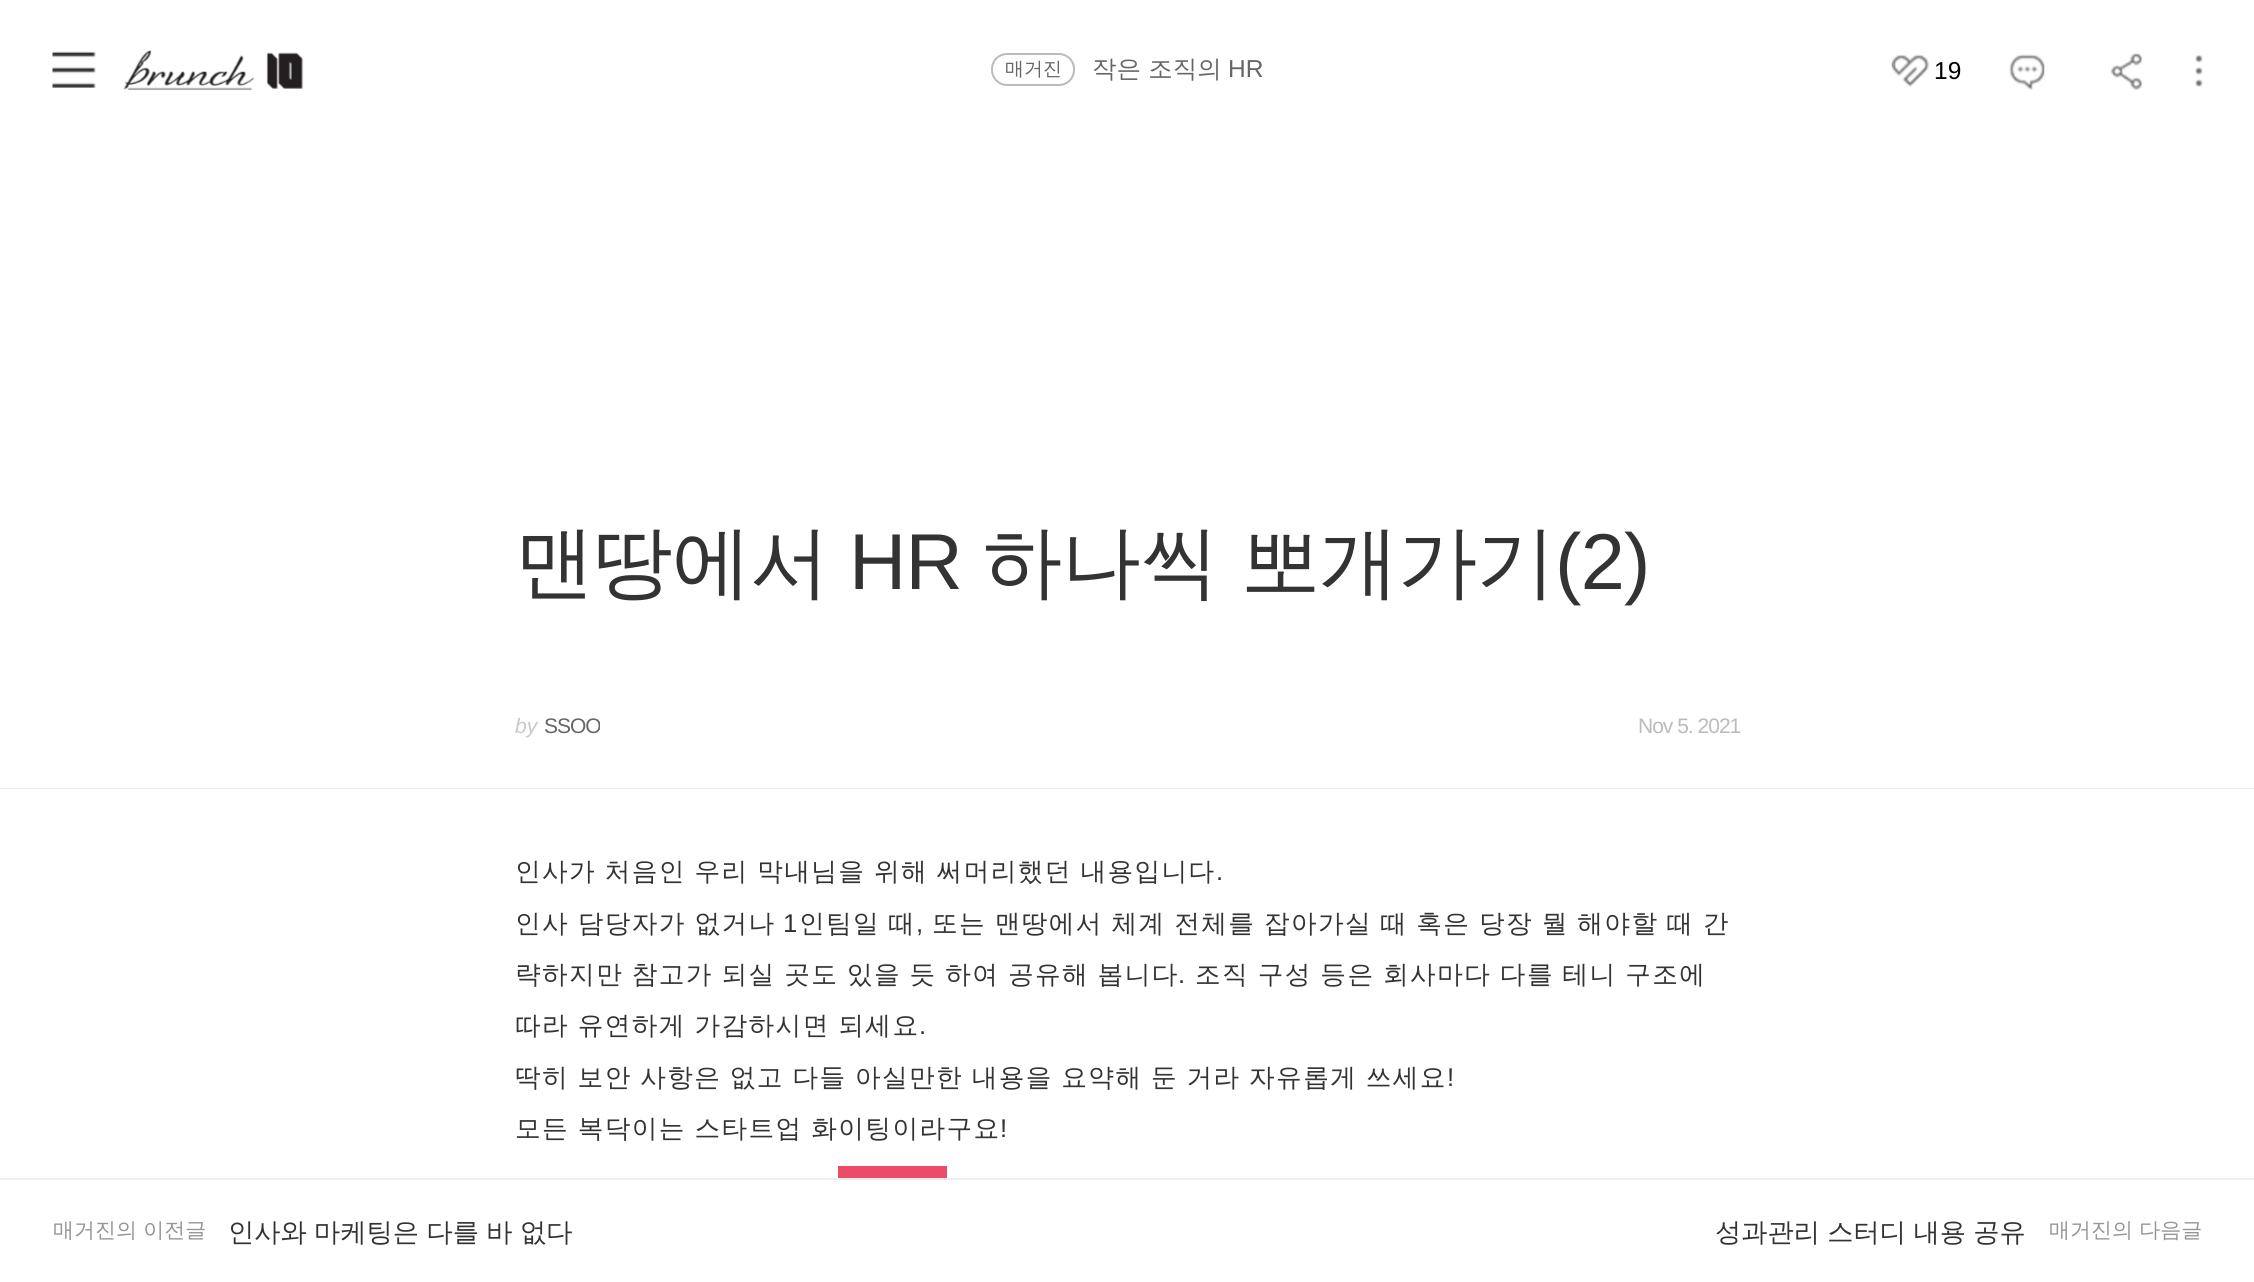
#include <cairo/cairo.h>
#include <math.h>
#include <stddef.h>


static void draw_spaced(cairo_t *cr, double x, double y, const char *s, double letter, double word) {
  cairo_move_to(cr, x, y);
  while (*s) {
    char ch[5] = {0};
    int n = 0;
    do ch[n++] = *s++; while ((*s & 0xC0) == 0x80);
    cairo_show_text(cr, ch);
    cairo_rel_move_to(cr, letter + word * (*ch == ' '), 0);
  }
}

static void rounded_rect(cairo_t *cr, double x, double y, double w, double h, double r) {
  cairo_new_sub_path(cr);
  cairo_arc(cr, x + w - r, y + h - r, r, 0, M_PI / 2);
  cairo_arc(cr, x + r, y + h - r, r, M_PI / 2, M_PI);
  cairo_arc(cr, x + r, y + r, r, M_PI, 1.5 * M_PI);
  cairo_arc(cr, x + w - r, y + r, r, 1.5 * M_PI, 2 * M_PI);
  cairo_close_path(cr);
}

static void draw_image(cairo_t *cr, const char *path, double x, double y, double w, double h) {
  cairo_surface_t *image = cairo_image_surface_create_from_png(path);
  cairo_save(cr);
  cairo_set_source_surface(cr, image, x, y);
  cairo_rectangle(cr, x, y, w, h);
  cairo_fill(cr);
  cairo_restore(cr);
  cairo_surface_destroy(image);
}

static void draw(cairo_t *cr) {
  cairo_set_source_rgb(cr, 1, 1, 1);
  cairo_paint(cr);
  draw_image(cr, "images/1.png", 52, 51, 44, 37);
  draw_image(cr, "images/2.png", 123, 50, 181, 40);
  rounded_rect(cr, 992, 54, 82, 31, 15);
  cairo_set_source_rgb(cr, 187 / 255.0, 187 / 255.0, 187 / 255.0);
  cairo_stroke(cr);
  draw_image(cr, "images/3.png", 1891, 54, 38, 33);
  draw_image(cr, "images/4.png", 2009, 54, 36, 36);
  draw_image(cr, "images/5.png", 2110, 53, 33, 37);
  draw_image(cr, "images/6.png", 2195, 55, 8, 32);
  cairo_set_source_rgb(cr, 238 / 255.0, 238 / 255.0, 238 / 255.0);
  cairo_rectangle(cr, 0, 788, 2254, 1);
  cairo_fill(cr);
  cairo_set_source_rgb(cr, 236 / 255.0, 76 / 255.0, 106 / 255.0);
  cairo_rectangle(cr, 838, 1166, 109, 12);
  cairo_fill(cr);
  cairo_set_source_rgb(cr, 238 / 255.0, 238 / 255.0, 238 / 255.0);
  cairo_rectangle(cr, 0, 1178, 2254, 2);
  cairo_fill(cr);
  cairo_select_font_face(cr, "WenQuanYi Zen Hei Medium", CAIRO_FONT_SLANT_NORMAL, CAIRO_FONT_WEIGHT_NORMAL);
  cairo_set_font_size(cr, 19);
  cairo_set_source_rgb(cr, 102 / 255.0, 102 / 255.0, 102 / 255.0);
  cairo_move_to(cr, 1005, 75);
  cairo_show_text(cr, "매거진");
  cairo_set_font_size(cr, 24.5);
  cairo_move_to(cr, 1092, 77);
  cairo_show_text(cr, "작은 조직의");
  cairo_select_font_face(cr, "Liberation Sans", CAIRO_FONT_SLANT_NORMAL, CAIRO_FONT_WEIGHT_NORMAL);
  cairo_move_to(cr, 1228, 77);
  cairo_show_text(cr, "HR");
  cairo_set_source_rgb(cr, 0, 0, 0);
  cairo_move_to(cr, 1934, 79);
  cairo_show_text(cr, "19");
  cairo_select_font_face(cr, "WenQuanYi Zen Hei Medium", CAIRO_FONT_SLANT_NORMAL, CAIRO_FONT_WEIGHT_NORMAL);
  cairo_set_font_size(cr, 79.25);
  cairo_set_source_rgb(cr, 51 / 255.0, 51 / 255.0, 51 / 255.0);
  draw_spaced(cr, 515, 589, "맨땅에서", -0.75, 0);
  cairo_select_font_face(cr, "Liberation Sans", CAIRO_FONT_SLANT_NORMAL, CAIRO_FONT_WEIGHT_NORMAL);
  draw_spaced(cr, 849, 589, "HR", -0.75, 0);
  cairo_select_font_face(cr, "WenQuanYi Zen Hei Medium", CAIRO_FONT_SLANT_NORMAL, CAIRO_FONT_WEIGHT_NORMAL);
  draw_spaced(cr, 983, 589, "하나씩 뽀개가기", -0.75, -0.6);
  cairo_select_font_face(cr, "Liberation Sans", CAIRO_FONT_SLANT_NORMAL, CAIRO_FONT_WEIGHT_NORMAL);
  draw_spaced(cr, 1555, 589, "(2)", -0.75, 0);
  cairo_select_font_face(cr, "Liberation Sans", CAIRO_FONT_SLANT_ITALIC, CAIRO_FONT_WEIGHT_NORMAL);
  cairo_set_font_size(cr, 21);
  cairo_set_source_rgb(cr, 201 / 255.0, 201 / 255.0, 201 / 255.0);
  cairo_move_to(cr, 515, 733);
  cairo_show_text(cr, "by");
  cairo_save(cr);
  cairo_rectangle(cr, 544, 711, 56, 31);
  cairo_clip(cr);
  cairo_select_font_face(cr, "Liberation Sans", CAIRO_FONT_SLANT_NORMAL, CAIRO_FONT_WEIGHT_NORMAL);
  cairo_set_source_rgb(cr, 102 / 255.0, 102 / 255.0, 102 / 255.0);
  draw_spaced(cr, 544, 733, "SSOO", -1, 0);
  cairo_restore(cr);
  cairo_select_font_face(cr, "Liberation Sans", CAIRO_FONT_SLANT_NORMAL, CAIRO_FONT_WEIGHT_NORMAL);
  cairo_set_source_rgb(cr, 187 / 255.0, 187 / 255.0, 187 / 255.0);
  draw_spaced(cr, 1638, 733, "Nov 5. 2021", -1, 0);
  cairo_select_font_face(cr, "WenQuanYi Zen Hei Medium", CAIRO_FONT_SLANT_NORMAL, CAIRO_FONT_WEIGHT_NORMAL);
  cairo_set_font_size(cr, 25.65);
  cairo_set_source_rgb(cr, 51 / 255.0, 51 / 255.0, 51 / 255.0);
  draw_spaced(cr, 515, 880, "인사가 처음인 우리 막내님을 위해 써머리했던 내용입니다", 1.4, -0.5);
  cairo_select_font_face(cr, "Liberation Sans", CAIRO_FONT_SLANT_NORMAL, CAIRO_FONT_WEIGHT_NORMAL);
  draw_spaced(cr, 1216, 880, ".", 1.4, 0);
  cairo_select_font_face(cr, "WenQuanYi Zen Hei Medium", CAIRO_FONT_SLANT_NORMAL, CAIRO_FONT_WEIGHT_NORMAL);
  draw_spaced(cr, 515, 932, "인사 담당자가 없거나", 1.4, -0.5);
  cairo_select_font_face(cr, "Liberation Sans", CAIRO_FONT_SLANT_NORMAL, CAIRO_FONT_WEIGHT_NORMAL);
  draw_spaced(cr, 783, 932, "1", 1.4, 0);
  cairo_select_font_face(cr, "WenQuanYi Zen Hei Medium", CAIRO_FONT_SLANT_NORMAL, CAIRO_FONT_WEIGHT_NORMAL);
  draw_spaced(cr, 799, 932, "인팀일 때", 1.4, -0.5);
  cairo_select_font_face(cr, "Liberation Sans", CAIRO_FONT_SLANT_NORMAL, CAIRO_FONT_WEIGHT_NORMAL);
  draw_spaced(cr, 916, 932, ",", 1.4, 0);
  cairo_select_font_face(cr, "WenQuanYi Zen Hei Medium", CAIRO_FONT_SLANT_NORMAL, CAIRO_FONT_WEIGHT_NORMAL);
  draw_spaced(cr, 932, 932, "또는 맨땅에서 체계 전체를 잡아가실 때 혹은 당장 뭘 해야할 때 간", 1.4, -0.5);
  draw_spaced(cr, 515, 983, "략하지만 참고가 되실 곳도 있을 듯 하여 공유해 봅니다", 1.4, -0.5);
  cairo_select_font_face(cr, "Liberation Sans", CAIRO_FONT_SLANT_NORMAL, CAIRO_FONT_WEIGHT_NORMAL);
  draw_spaced(cr, 1178, 983, ".", 1.4, 0);
  cairo_select_font_face(cr, "WenQuanYi Zen Hei Medium", CAIRO_FONT_SLANT_NORMAL, CAIRO_FONT_WEIGHT_NORMAL);
  draw_spaced(cr, 1195, 983, "조직 구성 등은 회사마다 다를 테니 구조에", 1.4, -0.5);
  draw_spaced(cr, 515, 1034, "따라 유연하게 가감하시면 되세요", 1.4, -0.5);
  cairo_select_font_face(cr, "Liberation Sans", CAIRO_FONT_SLANT_NORMAL, CAIRO_FONT_WEIGHT_NORMAL);
  draw_spaced(cr, 919, 1034, ".", 1.4, 0);
  cairo_select_font_face(cr, "WenQuanYi Zen Hei Medium", CAIRO_FONT_SLANT_NORMAL, CAIRO_FONT_WEIGHT_NORMAL);
  draw_spaced(cr, 515, 1086, "딱히 보안 사항은 없고 다들 아실만한 내용을 요약해 둔 거라 자유롭게 쓰세요", 1.4, -0.6);
  cairo_select_font_face(cr, "Liberation Sans", CAIRO_FONT_SLANT_NORMAL, CAIRO_FONT_WEIGHT_NORMAL);
  draw_spaced(cr, 1447, 1086, "!", 1.4, 0);
  cairo_select_font_face(cr, "WenQuanYi Zen Hei Medium", CAIRO_FONT_SLANT_NORMAL, CAIRO_FONT_WEIGHT_NORMAL);
  draw_spaced(cr, 515, 1137, "모든 복닥이는 스타트업 화이팅이라구요", 1.4, -0.5);
  cairo_select_font_face(cr, "Liberation Sans", CAIRO_FONT_SLANT_NORMAL, CAIRO_FONT_WEIGHT_NORMAL);
  draw_spaced(cr, 1000, 1137, "!", 1.4, 0);
  cairo_select_font_face(cr, "WenQuanYi Zen Hei Medium", CAIRO_FONT_SLANT_NORMAL, CAIRO_FONT_WEIGHT_NORMAL);
  cairo_set_font_size(cr, 21);
  cairo_set_source_rgb(cr, 149 / 255.0, 149 / 255.0, 149 / 255.0);
  cairo_move_to(cr, 53, 1237);
  cairo_show_text(cr, "매거진의 이전글");
  cairo_set_font_size(cr, 26.25);
  cairo_set_source_rgb(cr, 51 / 255.0, 51 / 255.0, 51 / 255.0);
  draw_spaced(cr, 228, 1241, "인사와 마케팅은 다를 바 없다", 0, -0.5);
  draw_spaced(cr, 1715, 1241, "성과관리 스터디 내용 공유", 0, -0.5);
  cairo_set_font_size(cr, 21);
  cairo_set_source_rgb(cr, 149 / 255.0, 149 / 255.0, 149 / 255.0);
  cairo_move_to(cr, 2049, 1237);
  cairo_show_text(cr, "매거진의 다음글");
}

int main(void) {
  cairo_surface_t *surface = cairo_image_surface_create(CAIRO_FORMAT_RGB24, 2254, 1282);
  cairo_t *cr = cairo_create(surface);
  cairo_font_options_t *options = cairo_font_options_create();
  cairo_font_options_set_hint_metrics(options, CAIRO_HINT_METRICS_OFF);
  cairo_font_options_set_hint_style(options, CAIRO_HINT_STYLE_NONE);
  cairo_set_font_options(cr, options);
  cairo_set_miter_limit(cr, 4);
  draw(cr);
  cairo_surface_write_to_png(surface, "out.png");
  cairo_font_options_destroy(options);
  cairo_destroy(cr);
  cairo_surface_destroy(surface);
  return 0;
}
